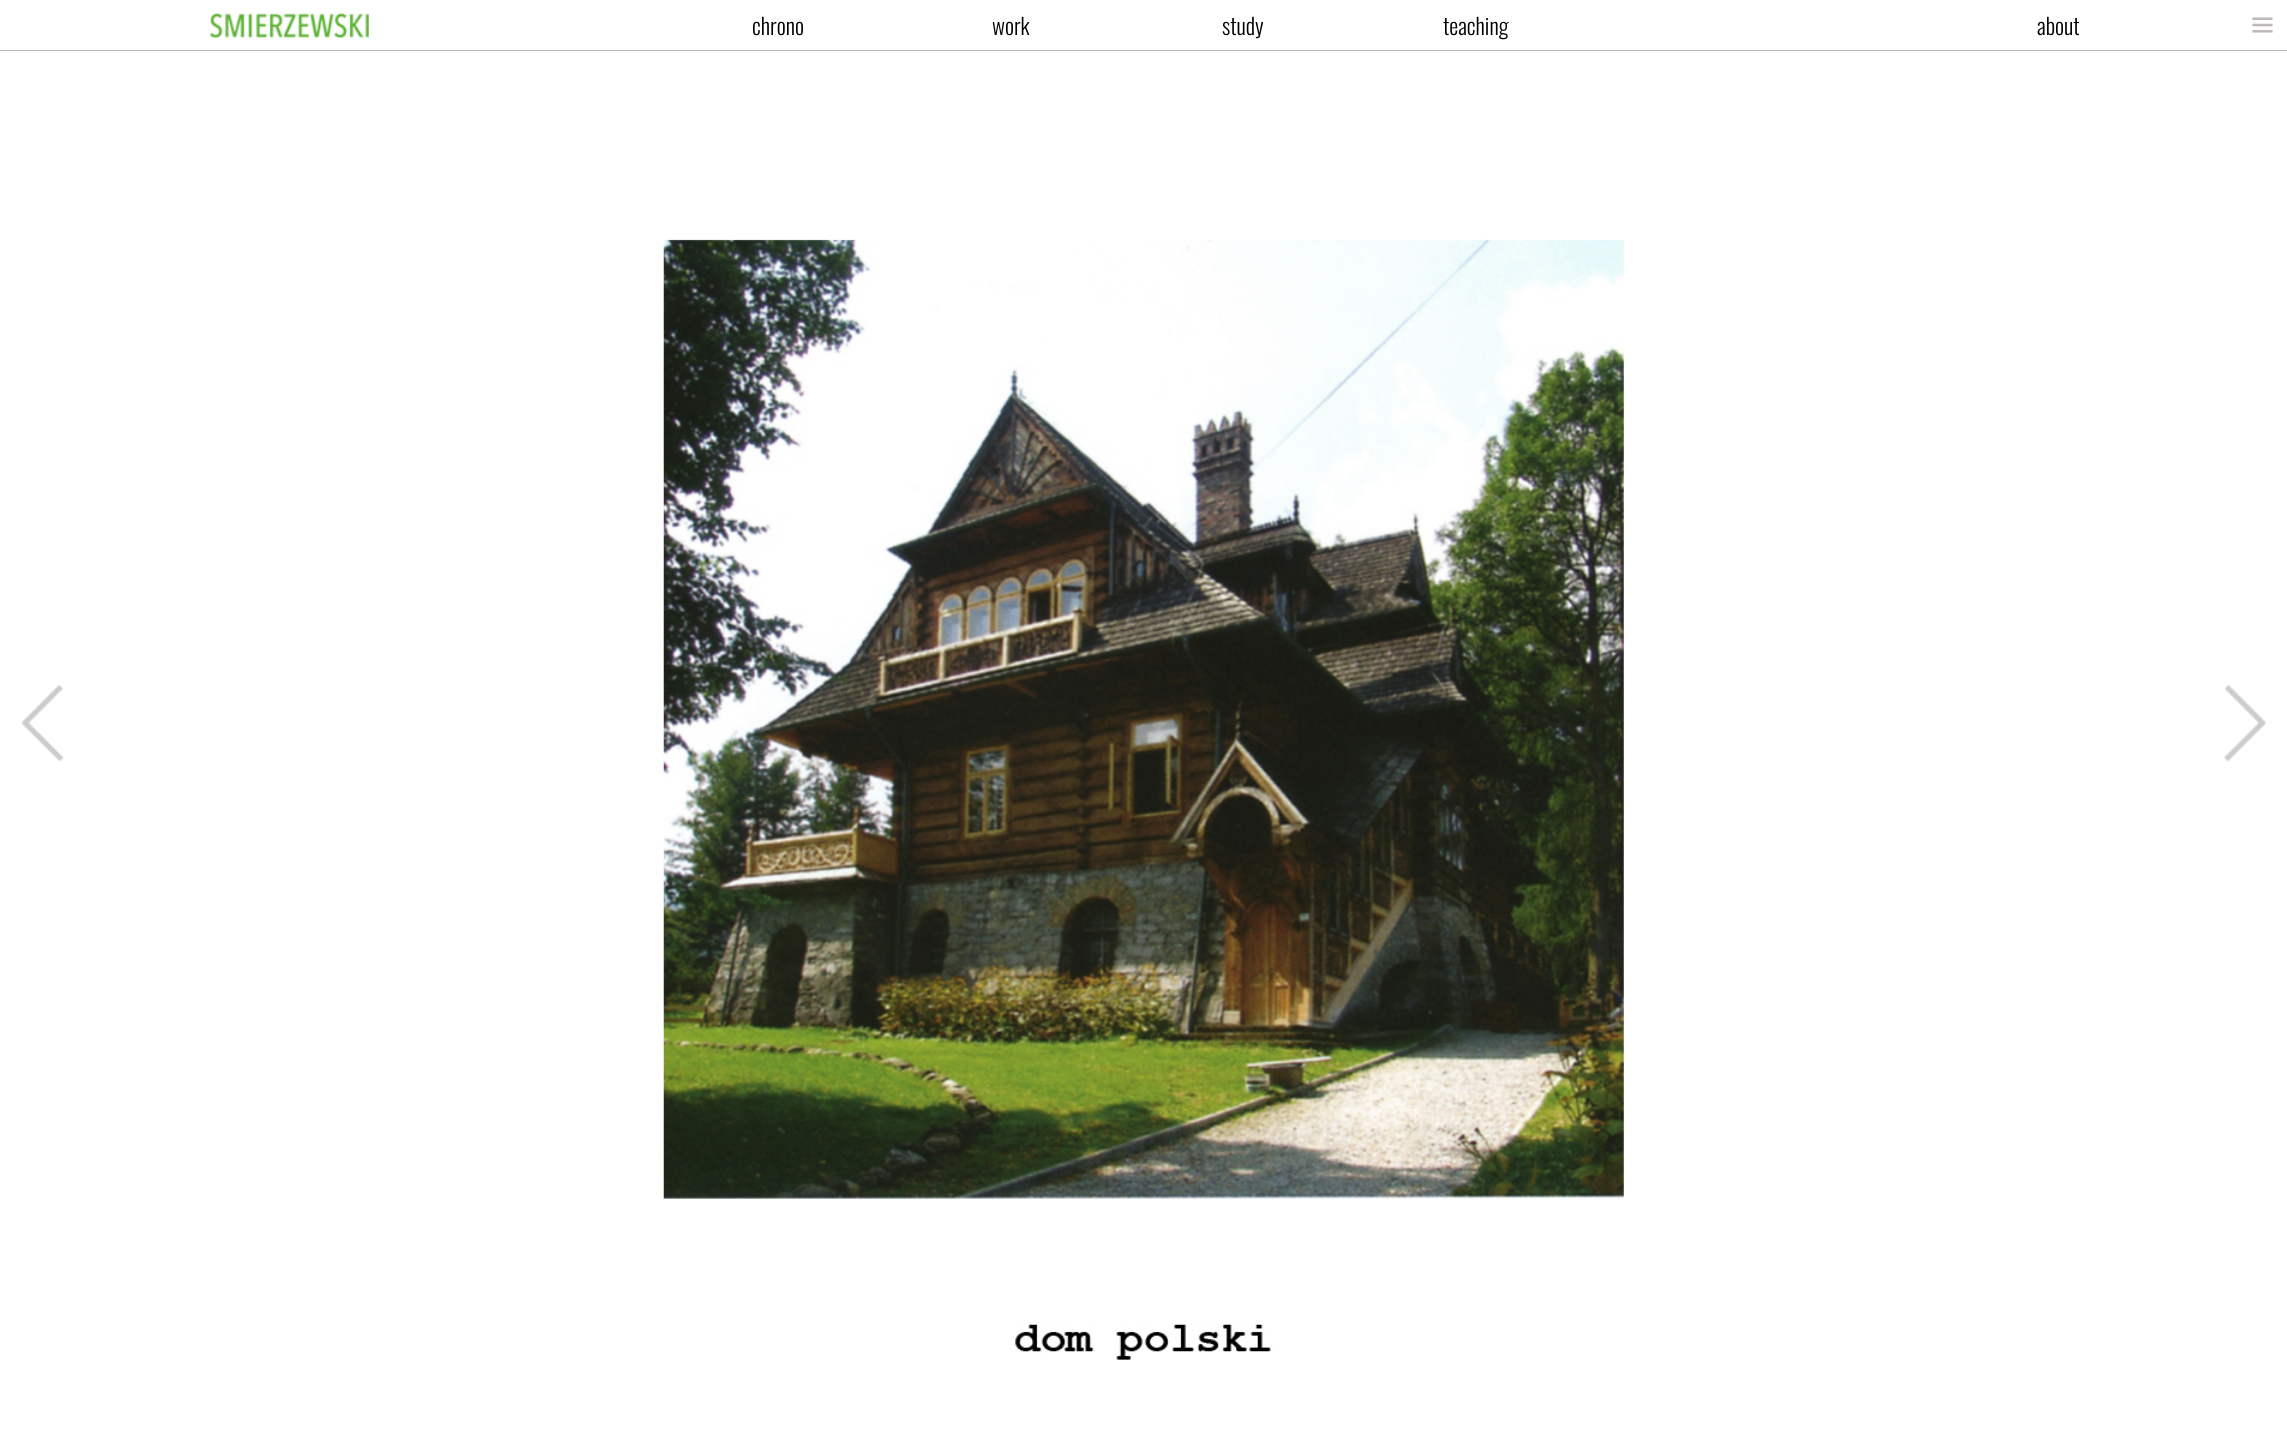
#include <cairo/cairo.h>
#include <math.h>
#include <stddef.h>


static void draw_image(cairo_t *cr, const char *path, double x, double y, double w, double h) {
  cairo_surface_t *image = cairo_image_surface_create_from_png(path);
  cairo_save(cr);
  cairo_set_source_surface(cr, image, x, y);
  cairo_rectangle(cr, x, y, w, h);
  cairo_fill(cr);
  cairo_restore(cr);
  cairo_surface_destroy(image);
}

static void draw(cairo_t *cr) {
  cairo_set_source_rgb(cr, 1, 1, 1);
  cairo_paint(cr);
  cairo_set_source_rgb(cr, 190 / 255.0, 186 / 255.0, 185 / 255.0);
  cairo_rectangle(cr, 0, 50, 2287, 1);
  cairo_fill(cr);
  draw_image(cr, "images/1.png", 209, 13, 160, 25);
  draw_image(cr, "images/3.png", 2252, 17, 21, 16);
  draw_image(cr, "images/2.png", 2252, 17, 21, 16);
  draw_image(cr, "images/4.png", 663, 239, 961, 1121);
  draw_image(cr, "images/5.png", 21, 685, 43, 77);
  draw_image(cr, "images/6.png", 2224, 685, 42, 77);
  cairo_select_font_face(cr, "Oswald Light", CAIRO_FONT_SLANT_NORMAL, CAIRO_FONT_WEIGHT_NORMAL);
  cairo_set_font_size(cr, 22.5);
  cairo_set_source_rgb(cr, 0, 0, 0);
  cairo_move_to(cr, 752, 35);
  cairo_show_text(cr, "chrono");
  cairo_move_to(cr, 992, 35);
  cairo_show_text(cr, "work");
  cairo_move_to(cr, 1222, 35);
  cairo_show_text(cr, "study");
  cairo_move_to(cr, 1443, 35);
  cairo_show_text(cr, "teaching");
  cairo_move_to(cr, 2037, 35);
  cairo_show_text(cr, "about");
}

int main(void) {
  cairo_surface_t *surface = cairo_image_surface_create(CAIRO_FORMAT_RGB24, 2287, 1440);
  cairo_t *cr = cairo_create(surface);
  cairo_font_options_t *options = cairo_font_options_create();
  cairo_font_options_set_hint_metrics(options, CAIRO_HINT_METRICS_OFF);
  cairo_font_options_set_hint_style(options, CAIRO_HINT_STYLE_NONE);
  cairo_set_font_options(cr, options);
  cairo_set_miter_limit(cr, 4);
  draw(cr);
  cairo_surface_write_to_png(surface, "out.png");
  cairo_font_options_destroy(options);
  cairo_destroy(cr);
  cairo_surface_destroy(surface);
  return 0;
}
